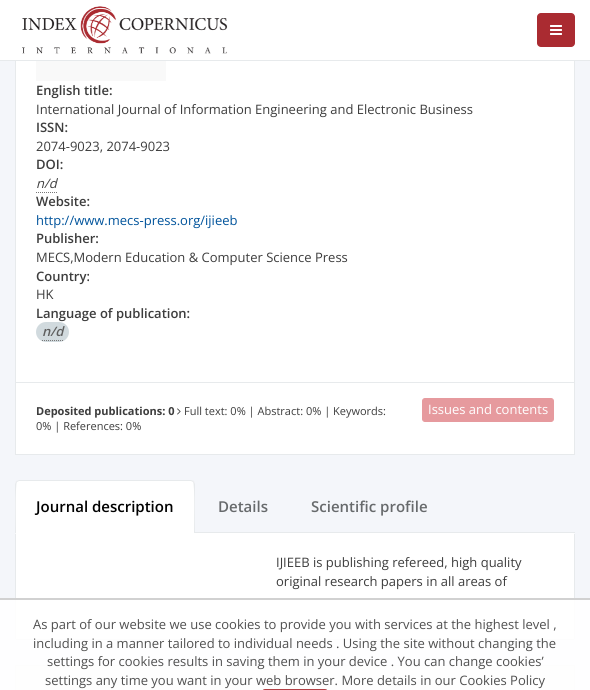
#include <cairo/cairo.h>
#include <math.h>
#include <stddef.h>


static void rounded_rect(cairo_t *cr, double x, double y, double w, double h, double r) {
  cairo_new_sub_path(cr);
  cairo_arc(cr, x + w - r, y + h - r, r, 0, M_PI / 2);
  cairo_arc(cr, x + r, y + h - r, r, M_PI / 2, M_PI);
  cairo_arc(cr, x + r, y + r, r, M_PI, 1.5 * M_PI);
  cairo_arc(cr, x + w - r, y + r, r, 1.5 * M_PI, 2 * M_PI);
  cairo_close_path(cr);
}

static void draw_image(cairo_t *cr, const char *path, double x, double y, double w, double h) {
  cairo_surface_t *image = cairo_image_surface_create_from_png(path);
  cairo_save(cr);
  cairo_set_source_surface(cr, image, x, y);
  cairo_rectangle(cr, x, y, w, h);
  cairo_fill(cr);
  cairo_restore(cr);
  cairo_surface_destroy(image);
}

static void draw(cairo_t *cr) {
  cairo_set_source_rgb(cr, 244 / 255.0, 246 / 255.0, 250 / 255.0);
  cairo_paint(cr);
  cairo_set_source_rgb(cr, 1, 1, 1);
  cairo_rectangle(cr, 0, 0, 590, 60);
  cairo_fill(cr);
  cairo_set_source_rgb(cr, 231 / 255.0, 234 / 255.0, 236 / 255.0);
  cairo_rectangle(cr, 0, 60, 590, 1);
  cairo_fill(cr);
  draw_image(cr, "images/1.png", 22, 6, 206, 48);
  cairo_set_source_rgb(cr, 170 / 255.0, 43 / 255.0, 49 / 255.0);
  rounded_rect(cr, 537, 13, 38, 34, 4);
  cairo_fill(cr);
  draw_image(cr, "images/2.png", 550, 25, 12, 10);
  cairo_set_source_rgb(cr, 1, 1, 1);
  cairo_rectangle(cr, 16, 61, 558, 321);
  cairo_fill(cr);
  cairo_set_source_rgb(cr, 231 / 255.0, 234 / 255.0, 236 / 255.0);
  cairo_rectangle(cr, 574, 61, 1, 321);
  cairo_fill(cr);
  cairo_rectangle(cr, 15, 61, 1, 321);
  cairo_fill(cr);
  cairo_set_source_rgb(cr, 249 / 255.0, 249 / 255.0, 249 / 255.0);
  cairo_rectangle(cr, 36, 61, 130, 20);
  cairo_fill(cr);
  cairo_new_path(cr);
  cairo_move_to(cr, 36, 192.5);
  cairo_line_to(cr, 57, 192.5);
  cairo_set_source_rgb(cr, 119 / 255.0, 119 / 255.0, 119 / 255.0);
  cairo_set_line_width(cr, 1);
  cairo_set_dash(cr, (double[]){1, 1}, 2, 0);
  cairo_stroke(cr);
  cairo_set_source_rgb(cr, 209 / 255.0, 218 / 255.0, 222 / 255.0);
  rounded_rect(cr, 36, 322, 33, 20, 10);
  cairo_fill(cr);
  cairo_new_path(cr);
  cairo_move_to(cr, 42, 340.5);
  cairo_line_to(cr, 63, 340.5);
  cairo_set_source_rgb(cr, 119 / 255.0, 119 / 255.0, 119 / 255.0);
  cairo_stroke(cr);
  cairo_set_source_rgb(cr, 1, 1, 1);
  cairo_rectangle(cr, 15.5, 382.5, 559, 72);
  cairo_fill_preserve(cr);
  cairo_set_source_rgb(cr, 231 / 255.0, 234 / 255.0, 236 / 255.0);
  cairo_set_dash(cr, NULL, 0, 0);
  cairo_stroke(cr);
  draw_image(cr, "images/3.png", 177, 408, 4, 7);
  cairo_set_source_rgb(cr, 230 / 255.0, 154 / 255.0, 158 / 255.0);
  rounded_rect(cr, 422.5, 398.5, 131, 23, 2.5);
  cairo_fill_preserve(cr);
  cairo_stroke(cr);
  cairo_set_source_rgb(cr, 231 / 255.0, 234 / 255.0, 236 / 255.0);
  cairo_rectangle(cr, 195, 532, 380, 1);
  cairo_fill(cr);
  cairo_set_source_rgb(cr, 1, 1, 1);
  cairo_new_path(cr);
  cairo_move_to(cr, 19, 480);
  cairo_line_to(cr, 191, 480);
  cairo_curve_to(cr, 193, 480, 195, 482, 195, 484);
  cairo_line_to(cr, 195, 534);
  cairo_line_to(cr, 15, 534);
  cairo_line_to(cr, 15, 484);
  cairo_curve_to(cr, 15, 482, 17, 480, 19, 480);
  cairo_close_path(cr);
  cairo_fill(cr);
  cairo_set_source_rgb(cr, 231 / 255.0, 234 / 255.0, 236 / 255.0);
  cairo_new_path(cr);
  cairo_move_to(cr, 19, 480);
  cairo_line_to(cr, 16, 481);
  cairo_line_to(cr, 17, 482);
  cairo_line_to(cr, 19, 481);
  cairo_line_to(cr, 191, 481);
  cairo_line_to(cr, 193, 482);
  cairo_line_to(cr, 194, 481);
  cairo_line_to(cr, 191, 480);
  cairo_close_path(cr);
  cairo_fill(cr);
  cairo_new_path(cr);
  cairo_move_to(cr, 195, 534);
  cairo_line_to(cr, 195, 484);
  cairo_line_to(cr, 194, 481);
  cairo_line_to(cr, 193, 482);
  cairo_curve_to(cr, 195, 484, 194, 527, 194, 533);
  cairo_close_path(cr);
  cairo_fill(cr);
  cairo_new_path(cr);
  cairo_move_to(cr, 15, 534);
  cairo_line_to(cr, 16, 533);
  cairo_curve_to(cr, 16, 527, 15, 484, 17, 482);
  cairo_line_to(cr, 16, 481);
  cairo_line_to(cr, 15, 484);
  cairo_close_path(cr);
  cairo_fill(cr);
  cairo_set_source_rgb(cr, 1, 1, 1);
  rounded_rect(cr, 15, 533, 560, 107, 2);
  cairo_fill(cr);
  cairo_set_source_rgb(cr, 231 / 255.0, 234 / 255.0, 236 / 255.0);
  cairo_rectangle(cr, 574, 534, 1, 105);
  cairo_fill(cr);
  cairo_rectangle(cr, 16, 639, 558, 1);
  cairo_fill(cr);
  cairo_rectangle(cr, 15, 534, 1, 105);
  cairo_fill(cr);
  cairo_set_source_rgb(cr, 243 / 255.0, 243 / 255.0, 244 / 255.0);
  cairo_rectangle(cr, 16, 666, 558, 24);
  cairo_fill(cr);
  cairo_set_source_rgb(cr, 231 / 255.0, 234 / 255.0, 236 / 255.0);
  cairo_rectangle(cr, 15, 665, 560, 1);
  cairo_fill(cr);
  cairo_rectangle(cr, 574, 665, 1, 25);
  cairo_fill(cr);
  cairo_rectangle(cr, 15, 665, 1, 25);
  cairo_fill(cr);
  cairo_set_source_rgba(cr, 1, 1, 1, 0.9);
  cairo_rectangle(cr, 0, 598, 590, 92);
  cairo_fill(cr);
  cairo_set_source_rgba(cr, 204 / 255.0, 204 / 255.0, 204 / 255.0, 0.9);
  cairo_rectangle(cr, 0, 598, 590, 2);
  cairo_fill(cr);
  cairo_set_source_rgba(cr, 170 / 255.0, 43 / 255.0, 49 / 255.0, 0.9);
  rounded_rect(cr, 262, 689, 66, 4, 3);
  cairo_fill(cr);
  cairo_select_font_face(cr, "Open Sans SemiBold", CAIRO_FONT_SLANT_NORMAL, CAIRO_FONT_WEIGHT_NORMAL);
  cairo_set_font_size(cr, 13);
  cairo_set_source_rgb(cr, 61 / 255.0, 61 / 255.0, 61 / 255.0);
  cairo_move_to(cr, 36, 95);
  cairo_show_text(cr, "English title:");
  cairo_select_font_face(cr, "Open Sans", CAIRO_FONT_SLANT_NORMAL, CAIRO_FONT_WEIGHT_NORMAL);
  cairo_move_to(cr, 36, 114);
  cairo_show_text(cr, "International Journal of Information Engineering and Electronic Business");
  cairo_select_font_face(cr, "Open Sans SemiBold", CAIRO_FONT_SLANT_NORMAL, CAIRO_FONT_WEIGHT_NORMAL);
  cairo_move_to(cr, 36, 132);
  cairo_show_text(cr, "ISSN:");
  cairo_select_font_face(cr, "Open Sans", CAIRO_FONT_SLANT_NORMAL, CAIRO_FONT_WEIGHT_NORMAL);
  cairo_move_to(cr, 36, 151);
  cairo_show_text(cr, "2074-9023, 2074-9023");
  cairo_select_font_face(cr, "Open Sans SemiBold", CAIRO_FONT_SLANT_NORMAL, CAIRO_FONT_WEIGHT_NORMAL);
  cairo_move_to(cr, 36, 169);
  cairo_show_text(cr, "DOI:");
  cairo_select_font_face(cr, "Open Sans", CAIRO_FONT_SLANT_ITALIC, CAIRO_FONT_WEIGHT_NORMAL);
  cairo_move_to(cr, 36, 188);
  cairo_show_text(cr, "n/d");
  cairo_select_font_face(cr, "Open Sans SemiBold", CAIRO_FONT_SLANT_NORMAL, CAIRO_FONT_WEIGHT_NORMAL);
  cairo_move_to(cr, 36, 206);
  cairo_show_text(cr, "Website:");
  cairo_select_font_face(cr, "Open Sans", CAIRO_FONT_SLANT_NORMAL, CAIRO_FONT_WEIGHT_NORMAL);
  cairo_set_source_rgb(cr, 0, 83 / 255.0, 155 / 255.0);
  cairo_move_to(cr, 36, 225);
  cairo_show_text(cr, "http://www.mecs-press.org/ijieeb");
  cairo_select_font_face(cr, "Open Sans SemiBold", CAIRO_FONT_SLANT_NORMAL, CAIRO_FONT_WEIGHT_NORMAL);
  cairo_set_source_rgb(cr, 61 / 255.0, 61 / 255.0, 61 / 255.0);
  cairo_move_to(cr, 36, 243);
  cairo_show_text(cr, "Publisher:");
  cairo_select_font_face(cr, "Open Sans", CAIRO_FONT_SLANT_NORMAL, CAIRO_FONT_WEIGHT_NORMAL);
  cairo_move_to(cr, 36, 262);
  cairo_show_text(cr, "MECS,Modern Education & Computer Science Press");
  cairo_select_font_face(cr, "Open Sans SemiBold", CAIRO_FONT_SLANT_NORMAL, CAIRO_FONT_WEIGHT_NORMAL);
  cairo_move_to(cr, 36, 281);
  cairo_show_text(cr, "Country:");
  cairo_select_font_face(cr, "Open Sans", CAIRO_FONT_SLANT_NORMAL, CAIRO_FONT_WEIGHT_NORMAL);
  cairo_move_to(cr, 36, 299);
  cairo_show_text(cr, "HK");
  cairo_select_font_face(cr, "Open Sans SemiBold", CAIRO_FONT_SLANT_NORMAL, CAIRO_FONT_WEIGHT_NORMAL);
  cairo_move_to(cr, 36, 318);
  cairo_show_text(cr, "Language of publication:");
  cairo_select_font_face(cr, "Open Sans SemiBold", CAIRO_FONT_SLANT_ITALIC, CAIRO_FONT_WEIGHT_NORMAL);
  cairo_set_source_rgb(cr, 94 / 255.0, 94 / 255.0, 94 / 255.0);
  cairo_move_to(cr, 42, 336);
  cairo_show_text(cr, "n/d");
  cairo_select_font_face(cr, "Open Sans", CAIRO_FONT_SLANT_NORMAL, CAIRO_FONT_WEIGHT_BOLD);
  cairo_set_font_size(cr, 11);
  cairo_set_source_rgb(cr, 61 / 255.0, 61 / 255.0, 61 / 255.0);
  cairo_move_to(cr, 36, 415);
  cairo_show_text(cr, "Deposited publications: 0");
  cairo_select_font_face(cr, "Open Sans", CAIRO_FONT_SLANT_NORMAL, CAIRO_FONT_WEIGHT_NORMAL);
  cairo_move_to(cr, 184, 415);
  cairo_show_text(cr, "Full text: 0% | Abstract: 0% | Keywords:");
  cairo_move_to(cr, 36, 430);
  cairo_show_text(cr, "0% | References: 0%");
  cairo_set_font_size(cr, 13);
  cairo_set_source_rgb(cr, 1, 1, 1);
  cairo_move_to(cr, 428, 414);
  cairo_show_text(cr, "Issues and contents");
  cairo_select_font_face(cr, "Open Sans SemiBold", CAIRO_FONT_SLANT_NORMAL, CAIRO_FONT_WEIGHT_NORMAL);
  cairo_set_font_size(cr, 15);
  cairo_set_source_rgb(cr, 0, 0, 0);
  cairo_move_to(cr, 36, 512);
  cairo_show_text(cr, "Journal description");
  cairo_set_source_rgb(cr, 103 / 255.0, 106 / 255.0, 108 / 255.0);
  cairo_move_to(cr, 218, 512);
  cairo_show_text(cr, "Details");
  cairo_move_to(cr, 311, 512);
  cairo_show_text(cr, "Scientific profile");
  cairo_select_font_face(cr, "Open Sans", CAIRO_FONT_SLANT_NORMAL, CAIRO_FONT_WEIGHT_NORMAL);
  cairo_set_font_size(cr, 13);
  cairo_set_source_rgb(cr, 61 / 255.0, 61 / 255.0, 61 / 255.0);
  cairo_move_to(cr, 276, 567);
  cairo_show_text(cr, "IJIEEB is publishing refereed, high quality");
  cairo_move_to(cr, 276, 586);
  cairo_show_text(cr, "original research papers in all areas of");
  cairo_set_source_rgb(cr, 80 / 255.0, 80 / 255.0, 80 / 255.0);
  cairo_move_to(cr, 33, 629);
  cairo_show_text(cr, "As part of our website we use cookies to provide you with services at the highest level ,");
  cairo_move_to(cr, 33, 648);
  cairo_show_text(cr, "including in a manner tailored to individual needs . Using the site without changing the");
  cairo_move_to(cr, 47, 666);
  cairo_show_text(cr, "settings for cookies results in saving them in your device . You can change cookies’");
  cairo_move_to(cr, 45, 685);
  cairo_show_text(cr, "settings any time you want in your web browser. More details in our Cookies Policy");
}

int main(void) {
  cairo_surface_t *surface = cairo_image_surface_create(CAIRO_FORMAT_RGB24, 590, 690);
  cairo_t *cr = cairo_create(surface);
  cairo_font_options_t *options = cairo_font_options_create();
  cairo_font_options_set_hint_metrics(options, CAIRO_HINT_METRICS_OFF);
  cairo_font_options_set_hint_style(options, CAIRO_HINT_STYLE_NONE);
  cairo_set_font_options(cr, options);
  cairo_set_miter_limit(cr, 4);
  draw(cr);
  cairo_surface_write_to_png(surface, "out.png");
  cairo_font_options_destroy(options);
  cairo_destroy(cr);
  cairo_surface_destroy(surface);
  return 0;
}
